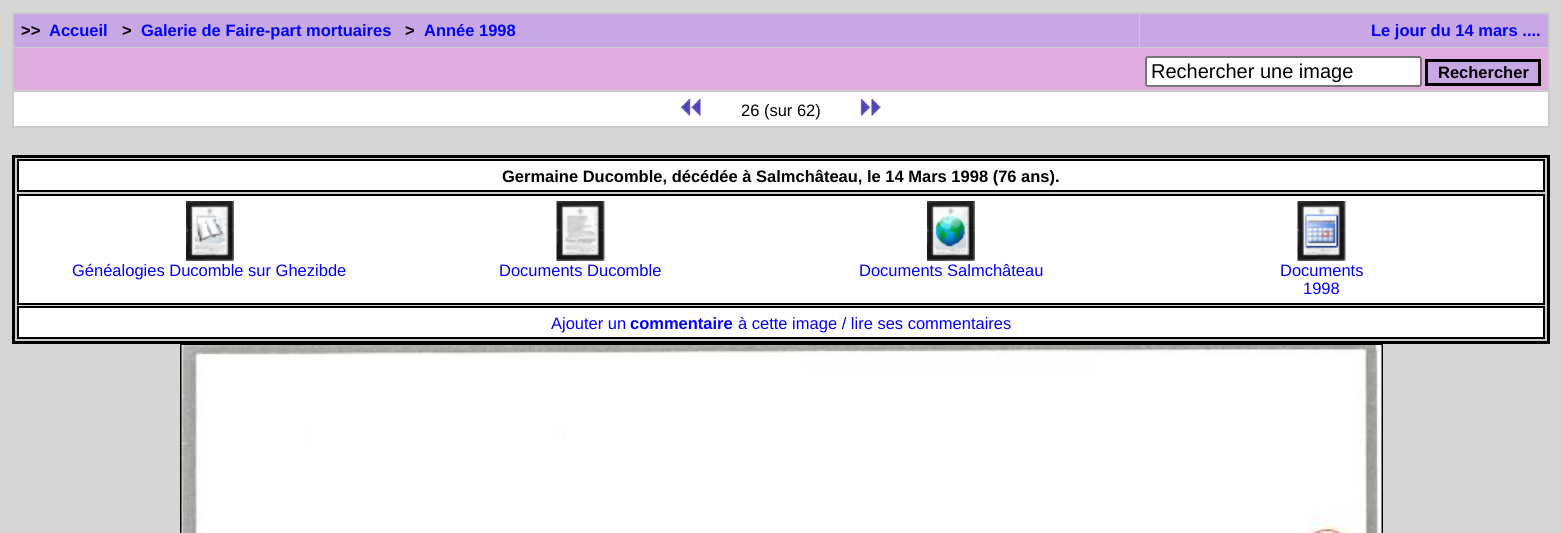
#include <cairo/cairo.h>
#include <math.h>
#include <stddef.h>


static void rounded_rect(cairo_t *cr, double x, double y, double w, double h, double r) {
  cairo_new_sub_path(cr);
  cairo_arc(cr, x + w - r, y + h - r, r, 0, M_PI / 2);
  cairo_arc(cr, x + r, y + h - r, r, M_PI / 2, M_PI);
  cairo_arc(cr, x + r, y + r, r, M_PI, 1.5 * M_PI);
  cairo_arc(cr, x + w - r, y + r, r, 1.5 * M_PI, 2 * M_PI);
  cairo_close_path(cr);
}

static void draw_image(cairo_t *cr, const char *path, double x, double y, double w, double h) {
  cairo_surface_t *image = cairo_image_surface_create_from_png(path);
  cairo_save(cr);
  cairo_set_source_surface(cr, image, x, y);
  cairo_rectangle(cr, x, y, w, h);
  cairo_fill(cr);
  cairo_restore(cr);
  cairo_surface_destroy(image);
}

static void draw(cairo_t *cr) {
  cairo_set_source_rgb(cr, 214 / 255.0, 214 / 255.0, 214 / 255.0);
  cairo_paint(cr);
  cairo_set_source_rgb(cr, 204 / 255.0, 204 / 255.0, 204 / 255.0);
  cairo_rectangle(cr, 12, 12, 1538, 116);
  cairo_fill(cr);
  cairo_set_source_rgb(cr, 200 / 255.0, 168 / 255.0, 228 / 255.0);
  cairo_rectangle(cr, 14, 14, 1125, 33);
  cairo_fill(cr);
  cairo_rectangle(cr, 1140, 14, 408, 33);
  cairo_fill(cr);
  cairo_set_source_rgb(cr, 225 / 255.0, 173 / 255.0, 225 / 255.0);
  cairo_rectangle(cr, 14, 48, 1534, 42);
  cairo_fill(cr);
  cairo_set_source_rgb(cr, 1, 1, 1);
  rounded_rect(cr, 1146, 57, 275, 29, 2);
  cairo_fill_preserve(cr);
  cairo_set_source_rgb(cr, 118 / 255.0, 118 / 255.0, 118 / 255.0);
  cairo_stroke(cr);
  cairo_set_source_rgb(cr, 200 / 255.0, 168 / 255.0, 228 / 255.0);
  cairo_rectangle(cr, 1426.5, 60.5, 113, 24);
  cairo_fill_preserve(cr);
  cairo_set_source_rgb(cr, 0, 0, 0);
  cairo_set_line_width(cr, 3);
  cairo_stroke(cr);
  cairo_set_source_rgb(cr, 1, 1, 1);
  cairo_rectangle(cr, 14, 92, 1534, 34);
  cairo_fill(cr);
  draw_image(cr, "images/1.png", 681, 99, 20, 17);
  draw_image(cr, "images/2.png", 860, 99, 21, 17);
  cairo_set_source_rgb(cr, 204 / 255.0, 204 / 255.0, 204 / 255.0);
  cairo_rectangle(cr, 13.5, 156.5, 1535, 186);
  cairo_fill_preserve(cr);
  cairo_set_source_rgb(cr, 0, 0, 0);
  cairo_stroke(cr);
  cairo_set_source_rgb(cr, 1, 1, 1);
  cairo_rectangle(cr, 18, 160, 1526, 31);
  cairo_fill_preserve(cr);
  cairo_set_source_rgb(cr, 0, 0, 0);
  cairo_set_line_width(cr, 2);
  cairo_stroke(cr);
  cairo_set_source_rgb(cr, 1, 1, 1);
  cairo_rectangle(cr, 18, 195, 1526, 109);
  cairo_fill_preserve(cr);
  cairo_set_source_rgb(cr, 0, 0, 0);
  cairo_stroke(cr);
  draw_image(cr, "images/3.png", 186, 201, 48, 60);
  draw_image(cr, "images/4.png", 556, 201, 49, 60);
  draw_image(cr, "images/5.png", 927, 201, 48, 60);
  draw_image(cr, "images/6.png", 1297, 201, 49, 60);
  cairo_set_source_rgb(cr, 1, 1, 1);
  cairo_rectangle(cr, 18, 307, 1526, 31);
  cairo_fill_preserve(cr);
  cairo_set_source_rgb(cr, 0, 0, 0);
  cairo_stroke(cr);
  cairo_rectangle(cr, 181, 345, 1201, 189);
  cairo_stroke(cr);
  draw_image(cr, "images/7.png", 181, 345, 1201, 188);
  cairo_select_font_face(cr, "Liberation Sans", CAIRO_FONT_SLANT_NORMAL, CAIRO_FONT_WEIGHT_BOLD);
  cairo_set_font_size(cr, 16.5);
  cairo_move_to(cr, 21, 36);
  cairo_show_text(cr, ">>");
  cairo_set_source_rgb(cr, 0, 0, 1);
  cairo_move_to(cr, 49, 36);
  cairo_show_text(cr, "Accueil");
  cairo_set_source_rgb(cr, 0, 0, 0);
  cairo_move_to(cr, 122, 36);
  cairo_show_text(cr, ">");
  cairo_set_source_rgb(cr, 0, 0, 1);
  cairo_move_to(cr, 141, 36);
  cairo_show_text(cr, "Galerie de Faire-part mortuaires");
  cairo_set_source_rgb(cr, 0, 0, 0);
  cairo_move_to(cr, 405, 36);
  cairo_show_text(cr, ">");
  cairo_set_source_rgb(cr, 0, 0, 1);
  cairo_move_to(cr, 424, 36);
  cairo_show_text(cr, "Année 1998");
  cairo_move_to(cr, 1371, 36);
  cairo_show_text(cr, "Le jour du 14 mars ....");
  cairo_select_font_face(cr, "Liberation Sans", CAIRO_FONT_SLANT_NORMAL, CAIRO_FONT_WEIGHT_NORMAL);
  cairo_set_font_size(cr, 20);
  cairo_set_source_rgb(cr, 0, 0, 0);
  cairo_move_to(cr, 1151, 78);
  cairo_show_text(cr, "Rechercher une image");
  cairo_select_font_face(cr, "Liberation Sans", CAIRO_FONT_SLANT_NORMAL, CAIRO_FONT_WEIGHT_BOLD);
  cairo_set_font_size(cr, 16.5);
  cairo_move_to(cr, 1438, 78);
  cairo_show_text(cr, "Rechercher");
  cairo_select_font_face(cr, "Liberation Sans", CAIRO_FONT_SLANT_NORMAL, CAIRO_FONT_WEIGHT_NORMAL);
  cairo_move_to(cr, 741, 116);
  cairo_show_text(cr, "26 (sur 62)");
  cairo_select_font_face(cr, "Liberation Sans", CAIRO_FONT_SLANT_NORMAL, CAIRO_FONT_WEIGHT_BOLD);
  cairo_move_to(cr, 502, 182);
  cairo_show_text(cr, "Germaine Ducomble, décédée à Salmchâteau, le 14 Mars 1998 (76 ans).");
  cairo_select_font_face(cr, "Liberation Sans", CAIRO_FONT_SLANT_NORMAL, CAIRO_FONT_WEIGHT_NORMAL);
  cairo_set_source_rgb(cr, 0, 0, 1);
  cairo_move_to(cr, 72, 276);
  cairo_show_text(cr, "Généalogies Ducomble sur Ghezibde");
  cairo_move_to(cr, 499, 276);
  cairo_show_text(cr, "Documents Ducomble");
  cairo_move_to(cr, 859, 276);
  cairo_show_text(cr, "Documents Salmchâteau");
  cairo_move_to(cr, 1280, 276);
  cairo_show_text(cr, "Documents");
  cairo_move_to(cr, 1303, 294);
  cairo_show_text(cr, "1998");
  cairo_move_to(cr, 551, 329);
  cairo_show_text(cr, "Ajouter un");
  cairo_select_font_face(cr, "Liberation Sans", CAIRO_FONT_SLANT_NORMAL, CAIRO_FONT_WEIGHT_BOLD);
  cairo_move_to(cr, 630, 329);
  cairo_show_text(cr, "commentaire");
  cairo_select_font_face(cr, "Liberation Sans", CAIRO_FONT_SLANT_NORMAL, CAIRO_FONT_WEIGHT_NORMAL);
  cairo_move_to(cr, 738, 329);
  cairo_show_text(cr, "à cette image / lire ses commentaires");
}

int main(void) {
  cairo_surface_t *surface = cairo_image_surface_create(CAIRO_FORMAT_RGB24, 1561, 533);
  cairo_t *cr = cairo_create(surface);
  cairo_font_options_t *options = cairo_font_options_create();
  cairo_font_options_set_hint_metrics(options, CAIRO_HINT_METRICS_OFF);
  cairo_font_options_set_hint_style(options, CAIRO_HINT_STYLE_NONE);
  cairo_set_font_options(cr, options);
  cairo_set_miter_limit(cr, 4);
  draw(cr);
  cairo_surface_write_to_png(surface, "out.png");
  cairo_font_options_destroy(options);
  cairo_destroy(cr);
  cairo_surface_destroy(surface);
  return 0;
}
